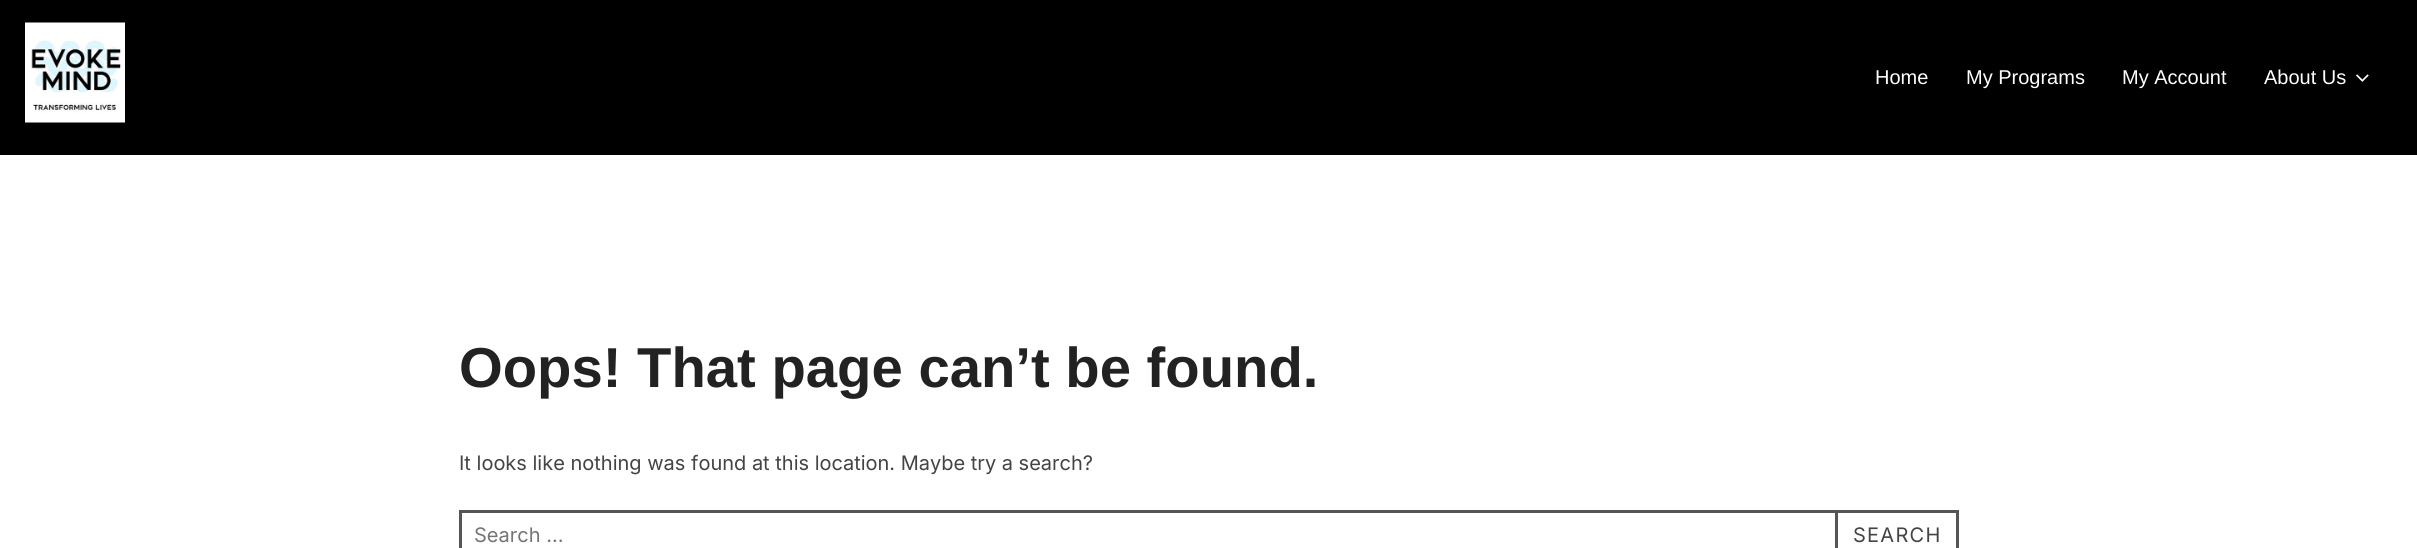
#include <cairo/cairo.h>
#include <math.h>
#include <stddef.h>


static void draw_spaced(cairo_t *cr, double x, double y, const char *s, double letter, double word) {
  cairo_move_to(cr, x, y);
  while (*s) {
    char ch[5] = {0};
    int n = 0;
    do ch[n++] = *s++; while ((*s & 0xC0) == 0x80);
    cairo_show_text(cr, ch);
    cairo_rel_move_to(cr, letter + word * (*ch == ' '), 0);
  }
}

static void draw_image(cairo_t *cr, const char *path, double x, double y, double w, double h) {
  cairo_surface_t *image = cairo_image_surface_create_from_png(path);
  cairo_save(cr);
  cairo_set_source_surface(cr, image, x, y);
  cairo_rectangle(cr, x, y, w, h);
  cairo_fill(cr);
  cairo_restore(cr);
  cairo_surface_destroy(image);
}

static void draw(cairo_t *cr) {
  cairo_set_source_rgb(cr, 1, 1, 1);
  cairo_paint(cr);
  cairo_set_source_rgb(cr, 0, 0, 0);
  cairo_rectangle(cr, 0, 0, 2417, 155);
  cairo_fill(cr);
  draw_image(cr, "images/1.png", 25, 22, 100, 101);
  draw_image(cr, "images/2.png", 2356, 74, 13, 8);
  cairo_rectangle(cr, 460.5, 511.5, 1497, 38);
  cairo_set_source_rgb(cr, 86 / 255.0, 85 / 255.0, 85 / 255.0);
  cairo_set_line_width(cr, 3);
  cairo_stroke(cr);
  cairo_rectangle(cr, 1836.5, 511.5, 121, 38);
  cairo_stroke(cr);
  cairo_select_font_face(cr, "Liberation Sans", CAIRO_FONT_SLANT_NORMAL, CAIRO_FONT_WEIGHT_NORMAL);
  cairo_set_font_size(cr, 20);
  cairo_set_source_rgb(cr, 1, 1, 1);
  cairo_move_to(cr, 1875, 84);
  cairo_show_text(cr, "Home");
  cairo_move_to(cr, 1966, 84);
  cairo_show_text(cr, "My Programs");
  cairo_move_to(cr, 2122, 84);
  cairo_show_text(cr, "My Account");
  cairo_move_to(cr, 2264, 84);
  cairo_show_text(cr, "About Us");
  cairo_select_font_face(cr, "Liberation Sans", CAIRO_FONT_SLANT_NORMAL, CAIRO_FONT_WEIGHT_BOLD);
  cairo_set_font_size(cr, 56.25);
  cairo_set_source_rgb(cr, 34 / 255.0, 34 / 255.0, 34 / 255.0);
  cairo_move_to(cr, 459, 387);
  cairo_show_text(cr, "Oops! That page can’t be found.");
  cairo_select_font_face(cr, "Inter", CAIRO_FONT_SLANT_NORMAL, CAIRO_FONT_WEIGHT_NORMAL);
  cairo_set_font_size(cr, 20);
  cairo_set_source_rgb(cr, 68 / 255.0, 68 / 255.0, 68 / 255.0);
  cairo_move_to(cr, 459, 470);
  cairo_show_text(cr, "It looks like nothing was found at this location. Maybe try a search?");
  cairo_set_source_rgb(cr, 117 / 255.0, 117 / 255.0, 117 / 255.0);
  cairo_move_to(cr, 474, 542);
  cairo_show_text(cr, "Search …");
  cairo_set_source_rgb(cr, 68 / 255.0, 68 / 255.0, 68 / 255.0);
  draw_spaced(cr, 1853, 542, "SEARCH", 1.25, 0);
}

int main(void) {
  cairo_surface_t *surface = cairo_image_surface_create(CAIRO_FORMAT_RGB24, 2417, 548);
  cairo_t *cr = cairo_create(surface);
  cairo_font_options_t *options = cairo_font_options_create();
  cairo_font_options_set_hint_metrics(options, CAIRO_HINT_METRICS_OFF);
  cairo_font_options_set_hint_style(options, CAIRO_HINT_STYLE_NONE);
  cairo_set_font_options(cr, options);
  cairo_set_miter_limit(cr, 4);
  draw(cr);
  cairo_surface_write_to_png(surface, "out.png");
  cairo_font_options_destroy(options);
  cairo_destroy(cr);
  cairo_surface_destroy(surface);
  return 0;
}
